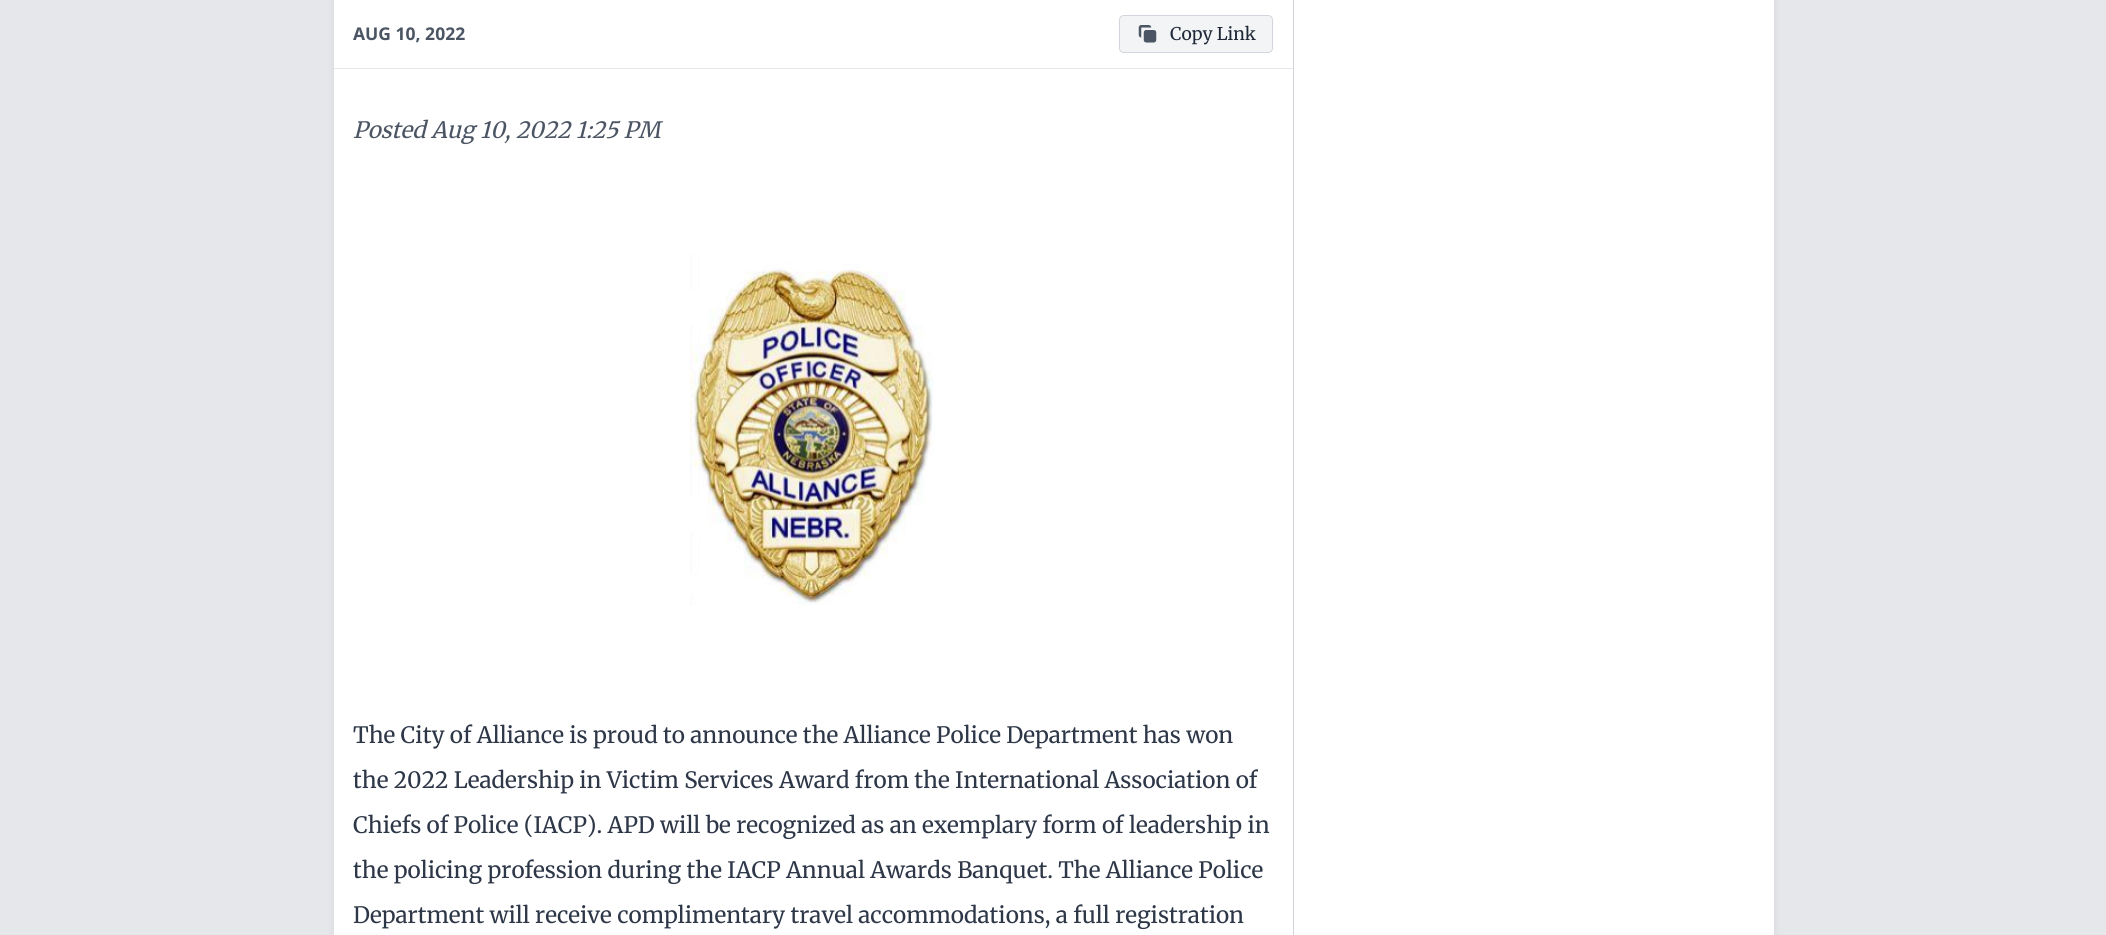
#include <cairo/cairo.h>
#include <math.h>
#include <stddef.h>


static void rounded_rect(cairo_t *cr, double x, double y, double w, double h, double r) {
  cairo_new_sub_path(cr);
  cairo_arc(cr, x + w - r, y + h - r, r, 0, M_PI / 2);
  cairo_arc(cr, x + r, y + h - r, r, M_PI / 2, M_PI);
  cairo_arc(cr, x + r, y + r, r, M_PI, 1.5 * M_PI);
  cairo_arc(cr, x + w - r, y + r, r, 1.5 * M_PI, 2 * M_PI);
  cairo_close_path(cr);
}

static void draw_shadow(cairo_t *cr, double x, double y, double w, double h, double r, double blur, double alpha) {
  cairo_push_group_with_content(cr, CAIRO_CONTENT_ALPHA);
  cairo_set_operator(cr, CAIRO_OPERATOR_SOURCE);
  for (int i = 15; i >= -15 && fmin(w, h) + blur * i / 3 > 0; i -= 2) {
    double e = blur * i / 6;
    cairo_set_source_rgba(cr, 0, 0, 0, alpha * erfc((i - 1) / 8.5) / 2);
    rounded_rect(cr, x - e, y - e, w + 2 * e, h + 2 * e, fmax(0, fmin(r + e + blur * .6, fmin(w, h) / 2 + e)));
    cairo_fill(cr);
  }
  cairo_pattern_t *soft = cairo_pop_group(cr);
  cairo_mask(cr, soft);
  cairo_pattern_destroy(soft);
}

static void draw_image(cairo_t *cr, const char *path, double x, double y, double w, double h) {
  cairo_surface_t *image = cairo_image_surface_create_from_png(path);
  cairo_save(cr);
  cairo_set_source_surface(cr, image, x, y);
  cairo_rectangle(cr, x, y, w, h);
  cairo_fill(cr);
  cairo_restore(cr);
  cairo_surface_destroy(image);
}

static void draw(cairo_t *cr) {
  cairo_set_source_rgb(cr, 229 / 255.0, 231 / 255.0, 235 / 255.0);
  cairo_paint(cr);
  cairo_set_source_rgb(cr, 0, 0, 0);
  draw_shadow(cr, 335, -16, 1438, 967, 4, 4, 0.1);
  cairo_set_source_rgb(cr, 1, 1, 1);
  cairo_rectangle(cr, 334, 0, 1440, 935);
  cairo_fill(cr);
  cairo_set_source_rgb(cr, 209 / 255.0, 213 / 255.0, 219 / 255.0);
  cairo_rectangle(cr, 1293, 0, 1, 935);
  cairo_fill(cr);
  cairo_set_source_rgb(cr, 229 / 255.0, 231 / 255.0, 235 / 255.0);
  cairo_rectangle(cr, 334, 68, 959, 1);
  cairo_fill(cr);
  cairo_set_source_rgb(cr, 243 / 255.0, 244 / 255.0, 246 / 255.0);
  rounded_rect(cr, 1119.5, 15.5, 153, 37, 4.5);
  cairo_fill_preserve(cr);
  cairo_set_source_rgb(cr, 209 / 255.0, 213 / 255.0, 219 / 255.0);
  cairo_set_line_width(cr, 1);
  cairo_stroke(cr);
  draw_image(cr, "images/1.png", 1138, 25, 19, 18);
  draw_image(cr, "images/2.png", 690, 254, 245, 352);
  cairo_select_font_face(cr, "Noto Sans", CAIRO_FONT_SLANT_NORMAL, CAIRO_FONT_WEIGHT_BOLD);
  cairo_set_font_size(cr, 17.5);
  cairo_set_source_rgb(cr, 75 / 255.0, 85 / 255.0, 99 / 255.0);
  cairo_move_to(cr, 353, 40);
  cairo_show_text(cr, "AUG 10, 2022");
  cairo_select_font_face(cr, "Merriweather", CAIRO_FONT_SLANT_NORMAL, CAIRO_FONT_WEIGHT_NORMAL);
  cairo_set_source_rgb(cr, 31 / 255.0, 41 / 255.0, 55 / 255.0);
  cairo_move_to(cr, 1170, 40);
  cairo_show_text(cr, "Copy Link");
  cairo_select_font_face(cr, "Merriweather", CAIRO_FONT_SLANT_ITALIC, CAIRO_FONT_WEIGHT_NORMAL);
  cairo_set_font_size(cr, 22.5);
  cairo_set_source_rgb(cr, 75 / 255.0, 85 / 255.0, 99 / 255.0);
  cairo_move_to(cr, 353, 138);
  cairo_show_text(cr, "Posted Aug 10, 2022 1:25 PM");
  cairo_select_font_face(cr, "Merriweather", CAIRO_FONT_SLANT_NORMAL, CAIRO_FONT_WEIGHT_NORMAL);
  cairo_set_source_rgb(cr, 45 / 255.0, 55 / 255.0, 72 / 255.0);
  cairo_move_to(cr, 353, 743);
  cairo_show_text(cr, "The City of Alliance is proud to announce the Alliance Police Department has won");
  cairo_move_to(cr, 353, 788);
  cairo_show_text(cr, "the 2022 Leadership in Victim Services Award from the International Association of");
  cairo_move_to(cr, 353, 833);
  cairo_show_text(cr, "Chiefs of Police (IACP). APD will be recognized as an exemplary form of leadership in");
  cairo_move_to(cr, 353, 878);
  cairo_show_text(cr, "the policing profession during the IACP Annual Awards Banquet. The Alliance Police");
  cairo_move_to(cr, 353, 923);
  cairo_show_text(cr, "Department will receive complimentary travel accommodations, a full registration");
}

int main(void) {
  cairo_surface_t *surface = cairo_image_surface_create(CAIRO_FORMAT_RGB24, 2106, 935);
  cairo_t *cr = cairo_create(surface);
  cairo_font_options_t *options = cairo_font_options_create();
  cairo_font_options_set_hint_metrics(options, CAIRO_HINT_METRICS_OFF);
  cairo_font_options_set_hint_style(options, CAIRO_HINT_STYLE_NONE);
  cairo_set_font_options(cr, options);
  cairo_set_miter_limit(cr, 4);
  draw(cr);
  cairo_surface_write_to_png(surface, "out.png");
  cairo_font_options_destroy(options);
  cairo_destroy(cr);
  cairo_surface_destroy(surface);
  return 0;
}
